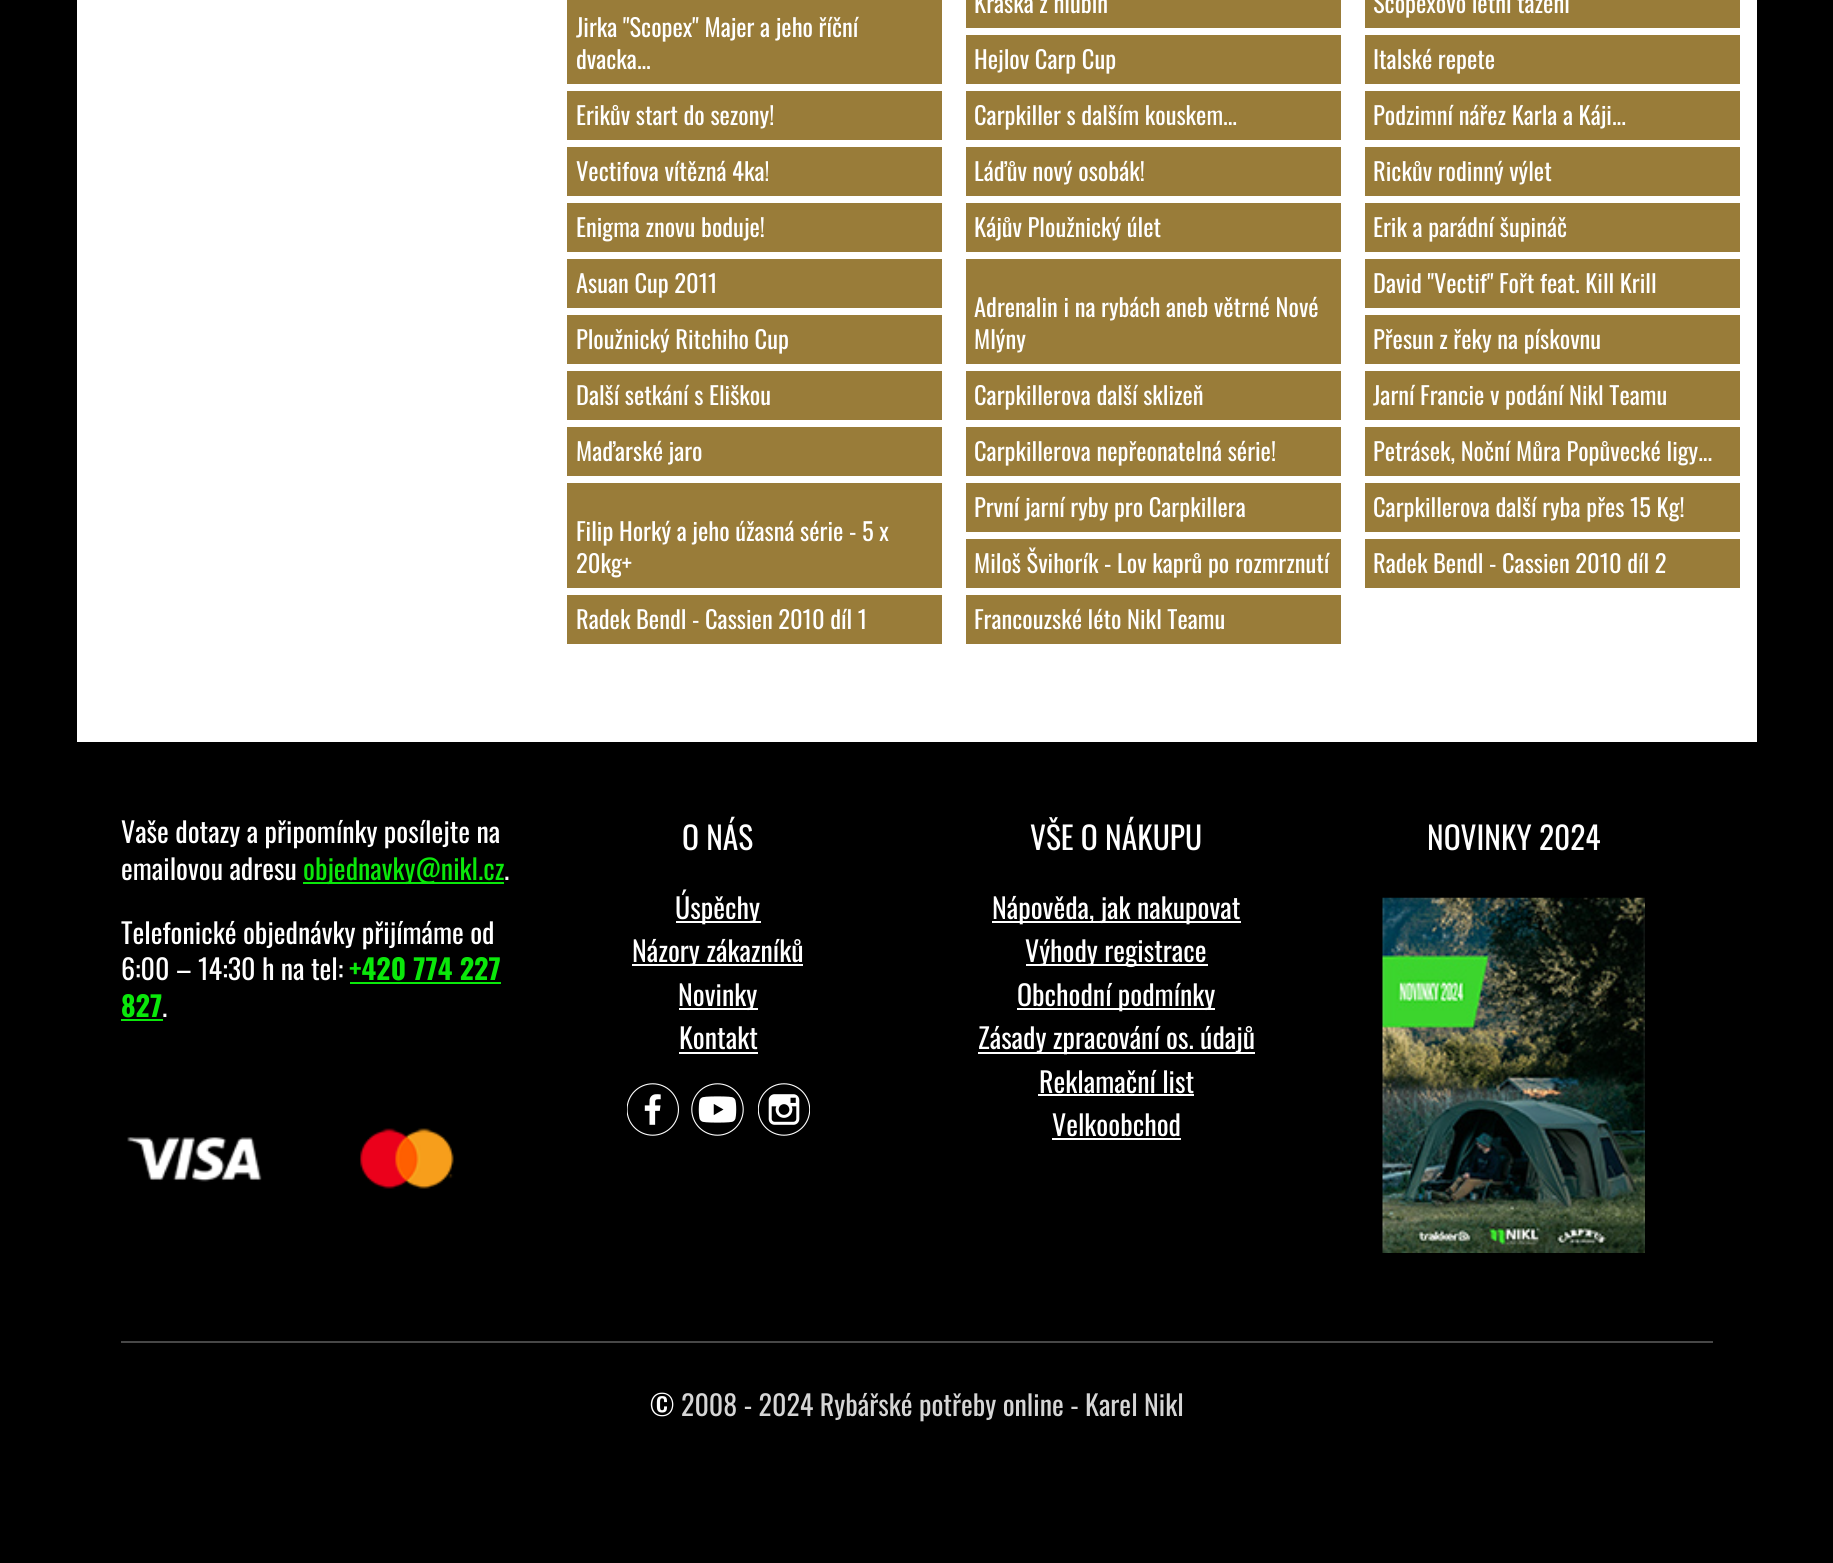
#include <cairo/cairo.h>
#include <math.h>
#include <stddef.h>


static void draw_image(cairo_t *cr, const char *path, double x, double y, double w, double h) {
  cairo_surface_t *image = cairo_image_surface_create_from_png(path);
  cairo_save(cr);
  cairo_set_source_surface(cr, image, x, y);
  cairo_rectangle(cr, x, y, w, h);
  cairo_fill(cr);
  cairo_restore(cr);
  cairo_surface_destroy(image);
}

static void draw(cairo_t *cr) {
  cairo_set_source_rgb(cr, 0, 0, 0);
  cairo_paint(cr);
  cairo_set_source_rgb(cr, 1, 1, 1);
  cairo_rectangle(cr, 77, 0, 1680, 742);
  cairo_fill(cr);
  cairo_set_source_rgb(cr, 153 / 255.0, 124 / 255.0, 57 / 255.0);
  cairo_rectangle(cr, 567, 0, 375, 84);
  cairo_fill(cr);
  cairo_rectangle(cr, 966, 0, 375, 28);
  cairo_fill(cr);
  cairo_rectangle(cr, 1365, 0, 375, 28);
  cairo_fill(cr);
  cairo_rectangle(cr, 966, 35, 375, 49);
  cairo_fill(cr);
  cairo_rectangle(cr, 1365, 35, 375, 49);
  cairo_fill(cr);
  cairo_rectangle(cr, 567, 91, 375, 49);
  cairo_fill(cr);
  cairo_rectangle(cr, 966, 91, 375, 49);
  cairo_fill(cr);
  cairo_rectangle(cr, 1365, 91, 375, 49);
  cairo_fill(cr);
  cairo_rectangle(cr, 567, 147, 375, 49);
  cairo_fill(cr);
  cairo_rectangle(cr, 966, 147, 375, 49);
  cairo_fill(cr);
  cairo_rectangle(cr, 1365, 147, 375, 49);
  cairo_fill(cr);
  cairo_rectangle(cr, 567, 203, 375, 49);
  cairo_fill(cr);
  cairo_rectangle(cr, 966, 203, 375, 49);
  cairo_fill(cr);
  cairo_rectangle(cr, 1365, 203, 375, 49);
  cairo_fill(cr);
  cairo_rectangle(cr, 567, 259, 375, 49);
  cairo_fill(cr);
  cairo_rectangle(cr, 966, 259, 375, 105);
  cairo_fill(cr);
  cairo_rectangle(cr, 1365, 259, 375, 49);
  cairo_fill(cr);
  cairo_rectangle(cr, 567, 315, 375, 49);
  cairo_fill(cr);
  cairo_rectangle(cr, 1365, 315, 375, 49);
  cairo_fill(cr);
  cairo_rectangle(cr, 567, 371, 375, 49);
  cairo_fill(cr);
  cairo_rectangle(cr, 966, 371, 375, 49);
  cairo_fill(cr);
  cairo_rectangle(cr, 1365, 371, 375, 49);
  cairo_fill(cr);
  cairo_rectangle(cr, 567, 427, 375, 49);
  cairo_fill(cr);
  cairo_rectangle(cr, 966, 427, 375, 49);
  cairo_fill(cr);
  cairo_rectangle(cr, 1365, 427, 375, 49);
  cairo_fill(cr);
  cairo_rectangle(cr, 567, 483, 375, 105);
  cairo_fill(cr);
  cairo_rectangle(cr, 966, 483, 375, 49);
  cairo_fill(cr);
  cairo_rectangle(cr, 1365, 483, 375, 49);
  cairo_fill(cr);
  cairo_rectangle(cr, 966, 539, 375, 49);
  cairo_fill(cr);
  cairo_rectangle(cr, 1365, 539, 375, 49);
  cairo_fill(cr);
  cairo_rectangle(cr, 567, 595, 375, 49);
  cairo_fill(cr);
  cairo_rectangle(cr, 966, 595, 375, 49);
  cairo_fill(cr);
  cairo_set_source_rgb(cr, 71 / 255.0, 71 / 255.0, 71 / 255.0);
  cairo_rectangle(cr, 121, 1341, 1592, 2);
  cairo_fill(cr);
  cairo_set_source_rgb(cr, 10 / 255.0, 232 / 255.0, 10 / 255.0);
  cairo_rectangle(cr, 303, 882, 201, 2);
  cairo_fill(cr);
  cairo_rectangle(cr, 350, 982, 151, 2);
  cairo_fill(cr);
  cairo_rectangle(cr, 121, 1019, 42, 2);
  cairo_fill(cr);
  draw_image(cr, "images/1.png", 127, 1128, 327, 61);
  cairo_set_source_rgb(cr, 1, 1, 1);
  cairo_rectangle(cr, 676, 921, 85, 2);
  cairo_fill(cr);
  cairo_rectangle(cr, 632, 964, 171, 2);
  cairo_fill(cr);
  cairo_rectangle(cr, 679, 1008, 79, 2);
  cairo_fill(cr);
  cairo_rectangle(cr, 679, 1052, 79, 2);
  cairo_fill(cr);
  draw_image(cr, "images/2.png", 627, 1083, 52, 53);
  draw_image(cr, "images/3.png", 691, 1083, 53, 53);
  draw_image(cr, "images/4.png", 758, 1083, 52, 53);
  cairo_rectangle(cr, 992, 921, 249, 2);
  cairo_fill(cr);
  cairo_rectangle(cr, 1026, 964, 182, 2);
  cairo_fill(cr);
  cairo_rectangle(cr, 1017, 1008, 198, 2);
  cairo_fill(cr);
  cairo_rectangle(cr, 978, 1052, 277, 2);
  cairo_fill(cr);
  cairo_rectangle(cr, 1038, 1094, 156, 2);
  cairo_fill(cr);
  cairo_rectangle(cr, 1052, 1138, 129, 2);
  cairo_fill(cr);
  draw_image(cr, "images/5.png", 1382, 897, 263, 356);
  cairo_select_font_face(cr, "Oswald", CAIRO_FONT_SLANT_NORMAL, CAIRO_FONT_WEIGHT_NORMAL);
  cairo_set_font_size(cr, 24.5);
  cairo_move_to(cr, 974, 13);
  cairo_show_text(cr, "Kráska z hlubin");
  cairo_move_to(cr, 1373, 13);
  cairo_show_text(cr, "Scopexovo letní tažení");
  cairo_move_to(cr, 576, 37);
  cairo_show_text(cr, "Jirka \"Scopex\" Majer a jeho říční");
  cairo_move_to(cr, 576, 69);
  cairo_show_text(cr, "dvacka...");
  cairo_move_to(cr, 974, 69);
  cairo_show_text(cr, "Hejlov Carp Cup");
  cairo_move_to(cr, 1373, 69);
  cairo_show_text(cr, "Italské repete");
  cairo_move_to(cr, 576, 125);
  cairo_show_text(cr, "Erikův start do sezony!");
  cairo_move_to(cr, 974, 125);
  cairo_show_text(cr, "Carpkiller s dalším kouskem...");
  cairo_move_to(cr, 1373, 125);
  cairo_show_text(cr, "Podzimní nářez Karla a Káji...");
  cairo_move_to(cr, 576, 181);
  cairo_show_text(cr, "Vectifova vítězná 4ka!");
  cairo_move_to(cr, 974, 181);
  cairo_show_text(cr, "Láďův nový osobák!");
  cairo_move_to(cr, 1373, 181);
  cairo_show_text(cr, "Rickův rodinný výlet");
  cairo_move_to(cr, 576, 237);
  cairo_show_text(cr, "Enigma znovu boduje!");
  cairo_move_to(cr, 974, 237);
  cairo_show_text(cr, "Kájův Ploužnický úlet");
  cairo_move_to(cr, 1373, 237);
  cairo_show_text(cr, "Erik a parádní šupináč");
  cairo_move_to(cr, 576, 293);
  cairo_show_text(cr, "Asuan Cup 2011");
  cairo_move_to(cr, 1373, 293);
  cairo_show_text(cr, "David \"Vectif\" Fořt feat. Kill Krill");
  cairo_move_to(cr, 576, 349);
  cairo_show_text(cr, "Ploužnický Ritchiho Cup");
  cairo_move_to(cr, 974, 317);
  cairo_show_text(cr, "Adrenalin i na rybách aneb větrné Nové");
  cairo_move_to(cr, 974, 349);
  cairo_show_text(cr, "Mlýny");
  cairo_move_to(cr, 1373, 349);
  cairo_show_text(cr, "Přesun z řeky na pískovnu");
  cairo_move_to(cr, 576, 405);
  cairo_show_text(cr, "Další setkání s Eliškou");
  cairo_move_to(cr, 974, 405);
  cairo_show_text(cr, "Carpkillerova další sklizeň");
  cairo_move_to(cr, 1373, 405);
  cairo_show_text(cr, "Jarní Francie v podání Nikl Teamu");
  cairo_move_to(cr, 576, 461);
  cairo_show_text(cr, "Maďarské jaro");
  cairo_move_to(cr, 974, 461);
  cairo_show_text(cr, "Carpkillerova nepřeonatelná série!");
  cairo_move_to(cr, 1373, 461);
  cairo_show_text(cr, "Petrásek, Noční Můra Popůvecké ligy...");
  cairo_move_to(cr, 974, 517);
  cairo_show_text(cr, "První jarní ryby pro Carpkillera");
  cairo_move_to(cr, 1373, 517);
  cairo_show_text(cr, "Carpkillerova další ryba přes 15 Kg!");
  cairo_move_to(cr, 576, 541);
  cairo_show_text(cr, "Filip Horký a jeho úžasná série - 5 x");
  cairo_move_to(cr, 576, 573);
  cairo_show_text(cr, "20kg+");
  cairo_move_to(cr, 974, 573);
  cairo_show_text(cr, "Miloš Švihorík - Lov kaprů po rozmrznutí");
  cairo_move_to(cr, 1373, 573);
  cairo_show_text(cr, "Radek Bendl - Cassien 2010 díl 2");
  cairo_move_to(cr, 576, 629);
  cairo_show_text(cr, "Radek Bendl - Cassien 2010 díl 1");
  cairo_move_to(cr, 974, 629);
  cairo_show_text(cr, "Francouzské léto Nikl Teamu");
  cairo_set_font_size(cr, 28);
  cairo_move_to(cr, 121, 843);
  cairo_show_text(cr, "Vaše dotazy a připomínky posílejte na");
  cairo_move_to(cr, 121, 880);
  cairo_show_text(cr, "emailovou adresu");
  cairo_set_source_rgb(cr, 10 / 255.0, 232 / 255.0, 10 / 255.0);
  cairo_move_to(cr, 303, 880);
  cairo_show_text(cr, "objednavky@nikl.cz");
  cairo_set_source_rgb(cr, 1, 1, 1);
  cairo_move_to(cr, 504, 880);
  cairo_show_text(cr, ".");
  cairo_move_to(cr, 121, 944);
  cairo_show_text(cr, "Telefonické objednávky přijímáme od");
  cairo_move_to(cr, 121, 980);
  cairo_show_text(cr, "6:00 – 14:30 h na tel:");
  cairo_select_font_face(cr, "Oswald", CAIRO_FONT_SLANT_NORMAL, CAIRO_FONT_WEIGHT_BOLD);
  cairo_set_source_rgb(cr, 10 / 255.0, 232 / 255.0, 10 / 255.0);
  cairo_move_to(cr, 349, 980);
  cairo_show_text(cr, "+420 774 227");
  cairo_move_to(cr, 121, 1017);
  cairo_show_text(cr, "827");
  cairo_select_font_face(cr, "Oswald", CAIRO_FONT_SLANT_NORMAL, CAIRO_FONT_WEIGHT_NORMAL);
  cairo_set_source_rgb(cr, 1, 1, 1);
  cairo_move_to(cr, 162, 1017);
  cairo_show_text(cr, ".");
  cairo_set_font_size(cr, 31.5);
  cairo_move_to(cr, 682, 850);
  cairo_show_text(cr, "O NÁS");
  cairo_set_font_size(cr, 28);
  cairo_move_to(cr, 675, 919);
  cairo_show_text(cr, "Úspěchy");
  cairo_move_to(cr, 632, 962);
  cairo_show_text(cr, "Názory zákazníků");
  cairo_move_to(cr, 678, 1006);
  cairo_show_text(cr, "Novinky");
  cairo_move_to(cr, 679, 1049);
  cairo_show_text(cr, "Kontakt");
  cairo_set_font_size(cr, 31.5);
  cairo_move_to(cr, 1030, 850);
  cairo_show_text(cr, "VŠE O NÁKUPU");
  cairo_set_font_size(cr, 28);
  cairo_move_to(cr, 992, 919);
  cairo_show_text(cr, "Nápověda, jak nakupovat");
  cairo_move_to(cr, 1025, 962);
  cairo_show_text(cr, "Výhody registrace");
  cairo_move_to(cr, 1017, 1006);
  cairo_show_text(cr, "Obchodní podmínky");
  cairo_move_to(cr, 978, 1049);
  cairo_show_text(cr, "Zásady zpracování os. údajů");
  cairo_move_to(cr, 1039, 1093);
  cairo_show_text(cr, "Reklamační list");
  cairo_move_to(cr, 1052, 1136);
  cairo_show_text(cr, "Velkoobchod");
  cairo_set_font_size(cr, 31.5);
  cairo_move_to(cr, 1427, 850);
  cairo_show_text(cr, "NOVINKY 2024");
  cairo_set_font_size(cr, 28);
  cairo_move_to(cr, 650, 1416);
  cairo_show_text(cr, "©");
  cairo_set_source_rgb(cr, 213 / 255.0, 213 / 255.0, 213 / 255.0);
  cairo_move_to(cr, 681, 1416);
  cairo_show_text(cr, "2008 - 2024 Rybářské potřeby online - Karel Nikl");
}

int main(void) {
  cairo_surface_t *surface = cairo_image_surface_create(CAIRO_FORMAT_RGB24, 1833, 1563);
  cairo_t *cr = cairo_create(surface);
  cairo_font_options_t *options = cairo_font_options_create();
  cairo_font_options_set_hint_metrics(options, CAIRO_HINT_METRICS_OFF);
  cairo_font_options_set_hint_style(options, CAIRO_HINT_STYLE_NONE);
  cairo_set_font_options(cr, options);
  cairo_set_miter_limit(cr, 4);
  draw(cr);
  cairo_surface_write_to_png(surface, "out.png");
  cairo_font_options_destroy(options);
  cairo_destroy(cr);
  cairo_surface_destroy(surface);
  return 0;
}
